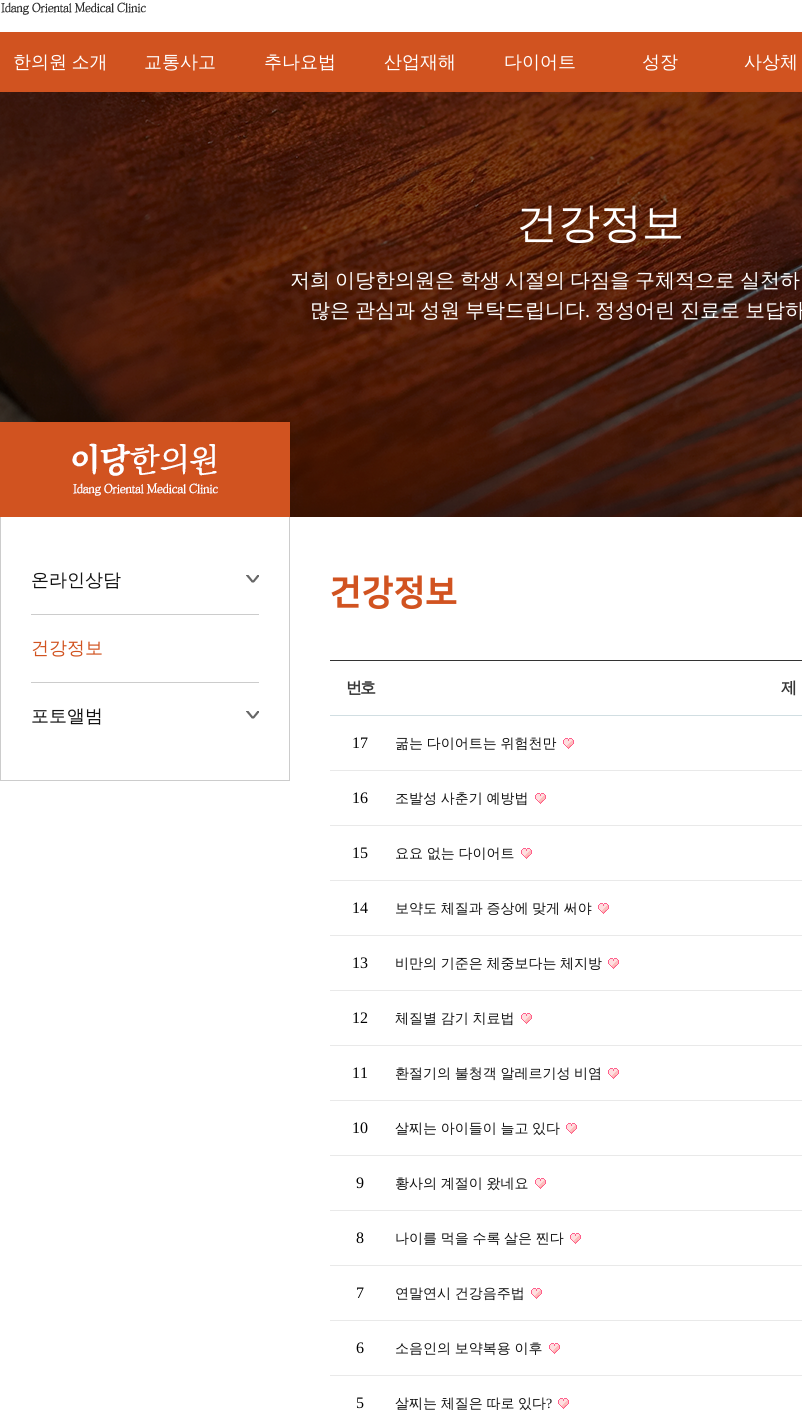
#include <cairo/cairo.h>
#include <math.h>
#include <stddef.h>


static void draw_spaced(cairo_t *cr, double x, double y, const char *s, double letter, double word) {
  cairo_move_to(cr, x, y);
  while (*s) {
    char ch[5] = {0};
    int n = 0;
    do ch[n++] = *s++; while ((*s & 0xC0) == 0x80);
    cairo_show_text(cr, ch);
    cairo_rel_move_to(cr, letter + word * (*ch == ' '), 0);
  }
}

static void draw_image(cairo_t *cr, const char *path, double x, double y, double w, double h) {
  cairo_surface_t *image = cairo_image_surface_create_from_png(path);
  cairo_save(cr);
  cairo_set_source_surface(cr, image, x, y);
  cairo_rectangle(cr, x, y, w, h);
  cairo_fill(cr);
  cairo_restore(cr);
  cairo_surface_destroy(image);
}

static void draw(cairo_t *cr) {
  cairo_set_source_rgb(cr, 1, 1, 1);
  cairo_paint(cr);
  draw_image(cr, "images/1.png", 1, 2, 145, 13);
  cairo_set_source_rgb(cr, 209 / 255.0, 83 / 255.0, 32 / 255.0);
  cairo_rectangle(cr, 0, 32, 802, 60);
  cairo_fill(cr);
  draw_image(cr, "images/2.png", 0, 92, 802, 425);
  draw_image(cr, "images/3.png", 0, 422, 290, 95);
  cairo_set_source_rgb(cr, 204 / 255.0, 204 / 255.0, 204 / 255.0);
  cairo_rectangle(cr, 289, 517, 1, 264);
  cairo_fill(cr);
  cairo_rectangle(cr, 0, 780, 290, 1);
  cairo_fill(cr);
  cairo_rectangle(cr, 0, 517, 1, 264);
  cairo_fill(cr);
  draw_image(cr, "images/4.png", 246, 575, 13, 8);
  cairo_rectangle(cr, 31, 614, 228, 1);
  cairo_fill(cr);
  cairo_rectangle(cr, 31, 682, 228, 1);
  cairo_fill(cr);
  draw_image(cr, "images/4.png", 246, 711, 13, 8);
  cairo_set_source_rgb(cr, 51 / 255.0, 51 / 255.0, 51 / 255.0);
  cairo_rectangle(cr, 330, 660, 472, 1);
  cairo_fill(cr);
  cairo_set_source_rgb(cr, 209 / 255.0, 222 / 255.0, 226 / 255.0);
  cairo_rectangle(cr, 330, 715, 472, 1);
  cairo_fill(cr);
  draw_image(cr, "images/5.png", 563, 738, 11, 11);
  cairo_set_source_rgb(cr, 233 / 255.0, 233 / 255.0, 233 / 255.0);
  cairo_rectangle(cr, 330, 770, 472, 1);
  cairo_fill(cr);
  draw_image(cr, "images/5.png", 535, 793, 11, 11);
  cairo_rectangle(cr, 330, 825, 472, 1);
  cairo_fill(cr);
  draw_image(cr, "images/5.png", 521, 848, 11, 11);
  cairo_rectangle(cr, 330, 880, 472, 1);
  cairo_fill(cr);
  draw_image(cr, "images/5.png", 598, 903, 11, 11);
  cairo_rectangle(cr, 330, 935, 472, 1);
  cairo_fill(cr);
  draw_image(cr, "images/5.png", 608, 958, 11, 11);
  cairo_rectangle(cr, 330, 990, 472, 1);
  cairo_fill(cr);
  draw_image(cr, "images/5.png", 521, 1013, 11, 11);
  cairo_rectangle(cr, 330, 1045, 472, 1);
  cairo_fill(cr);
  draw_image(cr, "images/5.png", 608, 1068, 11, 11);
  cairo_rectangle(cr, 330, 1100, 472, 1);
  cairo_fill(cr);
  draw_image(cr, "images/5.png", 566, 1123, 11, 11);
  cairo_rectangle(cr, 330, 1155, 472, 1);
  cairo_fill(cr);
  draw_image(cr, "images/5.png", 535, 1178, 11, 11);
  cairo_rectangle(cr, 330, 1210, 472, 1);
  cairo_fill(cr);
  draw_image(cr, "images/5.png", 570, 1233, 11, 11);
  cairo_rectangle(cr, 330, 1265, 472, 1);
  cairo_fill(cr);
  draw_image(cr, "images/5.png", 531, 1288, 11, 11);
  cairo_rectangle(cr, 330, 1320, 472, 1);
  cairo_fill(cr);
  draw_image(cr, "images/5.png", 549, 1343, 11, 11);
  cairo_rectangle(cr, 330, 1375, 472, 1);
  cairo_fill(cr);
  draw_image(cr, "images/5.png", 558, 1398, 11, 11);
  cairo_select_font_face(cr, "WenQuanYi Zen Hei Medium", CAIRO_FONT_SLANT_NORMAL, CAIRO_FONT_WEIGHT_NORMAL);
  cairo_set_font_size(cr, 18);
  cairo_set_source_rgb(cr, 1, 1, 1);
  draw_spaced(cr, 13, 68, "한의원 소개", 0, -1);
  cairo_move_to(cr, 144, 68);
  cairo_show_text(cr, "교통사고");
  cairo_move_to(cr, 264, 68);
  cairo_show_text(cr, "추나요법");
  cairo_move_to(cr, 384, 68);
  cairo_show_text(cr, "산업재해");
  cairo_move_to(cr, 504, 68);
  cairo_show_text(cr, "다이어트");
  cairo_move_to(cr, 642, 68);
  cairo_show_text(cr, "성장");
  cairo_move_to(cr, 744, 68);
  cairo_show_text(cr, "사상체");
  cairo_set_font_size(cr, 42);
  cairo_move_to(cr, 516, 237);
  cairo_show_text(cr, "건강정보");
  cairo_set_font_size(cr, 20);
  draw_spaced(cr, 290, 287, "저희 이당한의원은 학생 시절의 다짐을 구체적으로 실천하", 0, -1);
  draw_spaced(cr, 310, 317, "많은 관심과 성원 부탁드립니다", 0, -1);
  cairo_select_font_face(cr, "Liberation Serif", CAIRO_FONT_SLANT_NORMAL, CAIRO_FONT_WEIGHT_NORMAL);
  cairo_move_to(cr, 585, 317);
  cairo_show_text(cr, ".");
  cairo_select_font_face(cr, "WenQuanYi Zen Hei Medium", CAIRO_FONT_SLANT_NORMAL, CAIRO_FONT_WEIGHT_NORMAL);
  draw_spaced(cr, 595, 317, "정성어린 진료로 보답하", 0, -1);
  cairo_set_font_size(cr, 18);
  cairo_set_source_rgb(cr, 18 / 255.0, 18 / 255.0, 18 / 255.0);
  cairo_move_to(cr, 31, 586);
  cairo_show_text(cr, "온라인상담");
  cairo_set_source_rgb(cr, 209 / 255.0, 83 / 255.0, 32 / 255.0);
  cairo_move_to(cr, 31, 654);
  cairo_show_text(cr, "건강정보");
  cairo_set_source_rgb(cr, 18 / 255.0, 18 / 255.0, 18 / 255.0);
  cairo_move_to(cr, 31, 722);
  cairo_show_text(cr, "포토앨범");
  cairo_select_font_face(cr, "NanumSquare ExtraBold", CAIRO_FONT_SLANT_NORMAL, CAIRO_FONT_WEIGHT_NORMAL);
  cairo_set_font_size(cr, 35);
  cairo_set_source_rgb(cr, 209 / 255.0, 83 / 255.0, 32 / 255.0);
  cairo_move_to(cr, 330, 603);
  cairo_show_text(cr, "건강정보");
  cairo_select_font_face(cr, "WenQuanYi Zen Hei", CAIRO_FONT_SLANT_NORMAL, CAIRO_FONT_WEIGHT_BOLD);
  cairo_set_font_size(cr, 16);
  cairo_set_source_rgb(cr, 56 / 255.0, 56 / 255.0, 56 / 255.0);
  draw_spaced(cr, 346, 693, "번호", -2, 0);
  draw_spaced(cr, 781, 693, "제", -2, 0);
  cairo_select_font_face(cr, "Liberation Serif", CAIRO_FONT_SLANT_NORMAL, CAIRO_FONT_WEIGHT_NORMAL);
  cairo_set_source_rgb(cr, 0, 0, 0);
  cairo_move_to(cr, 352, 748);
  cairo_show_text(cr, "17");
  cairo_select_font_face(cr, "WenQuanYi Zen Hei Medium", CAIRO_FONT_SLANT_NORMAL, CAIRO_FONT_WEIGHT_NORMAL);
  cairo_set_font_size(cr, 14);
  cairo_set_source_rgb(cr, 18 / 255.0, 18 / 255.0, 18 / 255.0);
  draw_spaced(cr, 395, 748, "굶는 다이어트는 위험천만", 0, -0.5);
  cairo_select_font_face(cr, "Liberation Serif", CAIRO_FONT_SLANT_NORMAL, CAIRO_FONT_WEIGHT_NORMAL);
  cairo_set_font_size(cr, 16);
  cairo_set_source_rgb(cr, 0, 0, 0);
  cairo_move_to(cr, 352, 803);
  cairo_show_text(cr, "16");
  cairo_select_font_face(cr, "WenQuanYi Zen Hei Medium", CAIRO_FONT_SLANT_NORMAL, CAIRO_FONT_WEIGHT_NORMAL);
  cairo_set_font_size(cr, 14);
  cairo_set_source_rgb(cr, 18 / 255.0, 18 / 255.0, 18 / 255.0);
  draw_spaced(cr, 395, 803, "조발성 사춘기 예방법", 0, -0.5);
  cairo_select_font_face(cr, "Liberation Serif", CAIRO_FONT_SLANT_NORMAL, CAIRO_FONT_WEIGHT_NORMAL);
  cairo_set_font_size(cr, 16);
  cairo_set_source_rgb(cr, 0, 0, 0);
  cairo_move_to(cr, 352, 858);
  cairo_show_text(cr, "15");
  cairo_select_font_face(cr, "WenQuanYi Zen Hei Medium", CAIRO_FONT_SLANT_NORMAL, CAIRO_FONT_WEIGHT_NORMAL);
  cairo_set_font_size(cr, 14);
  cairo_set_source_rgb(cr, 18 / 255.0, 18 / 255.0, 18 / 255.0);
  draw_spaced(cr, 395, 858, "요요 없는 다이어트", 0, -0.5);
  cairo_select_font_face(cr, "Liberation Serif", CAIRO_FONT_SLANT_NORMAL, CAIRO_FONT_WEIGHT_NORMAL);
  cairo_set_font_size(cr, 16);
  cairo_set_source_rgb(cr, 0, 0, 0);
  cairo_move_to(cr, 352, 913);
  cairo_show_text(cr, "14");
  cairo_select_font_face(cr, "WenQuanYi Zen Hei Medium", CAIRO_FONT_SLANT_NORMAL, CAIRO_FONT_WEIGHT_NORMAL);
  cairo_set_font_size(cr, 14);
  cairo_set_source_rgb(cr, 18 / 255.0, 18 / 255.0, 18 / 255.0);
  draw_spaced(cr, 395, 913, "보약도 체질과 증상에 맞게 써야", 0, -0.5);
  cairo_select_font_face(cr, "Liberation Serif", CAIRO_FONT_SLANT_NORMAL, CAIRO_FONT_WEIGHT_NORMAL);
  cairo_set_font_size(cr, 16);
  cairo_set_source_rgb(cr, 0, 0, 0);
  cairo_move_to(cr, 352, 968);
  cairo_show_text(cr, "13");
  cairo_select_font_face(cr, "WenQuanYi Zen Hei Medium", CAIRO_FONT_SLANT_NORMAL, CAIRO_FONT_WEIGHT_NORMAL);
  cairo_set_font_size(cr, 14);
  cairo_set_source_rgb(cr, 18 / 255.0, 18 / 255.0, 18 / 255.0);
  draw_spaced(cr, 395, 968, "비만의 기준은 체중보다는 체지방", 0, -0.5);
  cairo_select_font_face(cr, "Liberation Serif", CAIRO_FONT_SLANT_NORMAL, CAIRO_FONT_WEIGHT_NORMAL);
  cairo_set_font_size(cr, 16);
  cairo_set_source_rgb(cr, 0, 0, 0);
  cairo_move_to(cr, 352, 1023);
  cairo_show_text(cr, "12");
  cairo_select_font_face(cr, "WenQuanYi Zen Hei Medium", CAIRO_FONT_SLANT_NORMAL, CAIRO_FONT_WEIGHT_NORMAL);
  cairo_set_font_size(cr, 14);
  cairo_set_source_rgb(cr, 18 / 255.0, 18 / 255.0, 18 / 255.0);
  draw_spaced(cr, 395, 1023, "체질별 감기 치료법", 0, -0.5);
  cairo_select_font_face(cr, "Liberation Serif", CAIRO_FONT_SLANT_NORMAL, CAIRO_FONT_WEIGHT_NORMAL);
  cairo_set_font_size(cr, 16);
  cairo_set_source_rgb(cr, 0, 0, 0);
  cairo_move_to(cr, 352, 1078);
  cairo_show_text(cr, "11");
  cairo_select_font_face(cr, "WenQuanYi Zen Hei Medium", CAIRO_FONT_SLANT_NORMAL, CAIRO_FONT_WEIGHT_NORMAL);
  cairo_set_font_size(cr, 14);
  cairo_set_source_rgb(cr, 18 / 255.0, 18 / 255.0, 18 / 255.0);
  draw_spaced(cr, 395, 1078, "환절기의 불청객 알레르기성 비염", 0, -0.5);
  cairo_select_font_face(cr, "Liberation Serif", CAIRO_FONT_SLANT_NORMAL, CAIRO_FONT_WEIGHT_NORMAL);
  cairo_set_font_size(cr, 16);
  cairo_set_source_rgb(cr, 0, 0, 0);
  cairo_move_to(cr, 352, 1133);
  cairo_show_text(cr, "10");
  cairo_select_font_face(cr, "WenQuanYi Zen Hei Medium", CAIRO_FONT_SLANT_NORMAL, CAIRO_FONT_WEIGHT_NORMAL);
  cairo_set_font_size(cr, 14);
  cairo_set_source_rgb(cr, 18 / 255.0, 18 / 255.0, 18 / 255.0);
  draw_spaced(cr, 395, 1133, "살찌는 아이들이 늘고 있다", 0, -0.5);
  cairo_select_font_face(cr, "Liberation Serif", CAIRO_FONT_SLANT_NORMAL, CAIRO_FONT_WEIGHT_NORMAL);
  cairo_set_font_size(cr, 16);
  cairo_set_source_rgb(cr, 0, 0, 0);
  cairo_move_to(cr, 356, 1188);
  cairo_show_text(cr, "9");
  cairo_select_font_face(cr, "WenQuanYi Zen Hei Medium", CAIRO_FONT_SLANT_NORMAL, CAIRO_FONT_WEIGHT_NORMAL);
  cairo_set_font_size(cr, 14);
  cairo_set_source_rgb(cr, 18 / 255.0, 18 / 255.0, 18 / 255.0);
  draw_spaced(cr, 395, 1188, "황사의 계절이 왔네요", 0, -0.5);
  cairo_select_font_face(cr, "Liberation Serif", CAIRO_FONT_SLANT_NORMAL, CAIRO_FONT_WEIGHT_NORMAL);
  cairo_set_font_size(cr, 16);
  cairo_set_source_rgb(cr, 0, 0, 0);
  cairo_move_to(cr, 356, 1243);
  cairo_show_text(cr, "8");
  cairo_select_font_face(cr, "WenQuanYi Zen Hei Medium", CAIRO_FONT_SLANT_NORMAL, CAIRO_FONT_WEIGHT_NORMAL);
  cairo_set_font_size(cr, 14);
  cairo_set_source_rgb(cr, 18 / 255.0, 18 / 255.0, 18 / 255.0);
  draw_spaced(cr, 395, 1243, "나이를 먹을 수록 살은 찐다", 0, -0.5);
  cairo_select_font_face(cr, "Liberation Serif", CAIRO_FONT_SLANT_NORMAL, CAIRO_FONT_WEIGHT_NORMAL);
  cairo_set_font_size(cr, 16);
  cairo_set_source_rgb(cr, 0, 0, 0);
  cairo_move_to(cr, 356, 1298);
  cairo_show_text(cr, "7");
  cairo_select_font_face(cr, "WenQuanYi Zen Hei Medium", CAIRO_FONT_SLANT_NORMAL, CAIRO_FONT_WEIGHT_NORMAL);
  cairo_set_font_size(cr, 14);
  cairo_set_source_rgb(cr, 18 / 255.0, 18 / 255.0, 18 / 255.0);
  draw_spaced(cr, 395, 1298, "연말연시 건강음주법", 0, -0.5);
  cairo_select_font_face(cr, "Liberation Serif", CAIRO_FONT_SLANT_NORMAL, CAIRO_FONT_WEIGHT_NORMAL);
  cairo_set_font_size(cr, 16);
  cairo_set_source_rgb(cr, 0, 0, 0);
  cairo_move_to(cr, 356, 1353);
  cairo_show_text(cr, "6");
  cairo_select_font_face(cr, "WenQuanYi Zen Hei Medium", CAIRO_FONT_SLANT_NORMAL, CAIRO_FONT_WEIGHT_NORMAL);
  cairo_set_font_size(cr, 14);
  cairo_set_source_rgb(cr, 18 / 255.0, 18 / 255.0, 18 / 255.0);
  draw_spaced(cr, 395, 1353, "소음인의 보약복용 이후", 0, -0.5);
  cairo_select_font_face(cr, "Liberation Serif", CAIRO_FONT_SLANT_NORMAL, CAIRO_FONT_WEIGHT_NORMAL);
  cairo_set_font_size(cr, 16);
  cairo_set_source_rgb(cr, 0, 0, 0);
  cairo_move_to(cr, 356, 1408);
  cairo_show_text(cr, "5");
  cairo_select_font_face(cr, "WenQuanYi Zen Hei Medium", CAIRO_FONT_SLANT_NORMAL, CAIRO_FONT_WEIGHT_NORMAL);
  cairo_set_font_size(cr, 14);
  cairo_set_source_rgb(cr, 18 / 255.0, 18 / 255.0, 18 / 255.0);
  draw_spaced(cr, 395, 1408, "살찌는 체질은 따로 있다", 0, -0.5);
  cairo_select_font_face(cr, "Liberation Serif", CAIRO_FONT_SLANT_NORMAL, CAIRO_FONT_WEIGHT_NORMAL);
  cairo_move_to(cr, 546, 1408);
  cairo_show_text(cr, "?");
}

int main(void) {
  cairo_surface_t *surface = cairo_image_surface_create(CAIRO_FORMAT_RGB24, 802, 1418);
  cairo_t *cr = cairo_create(surface);
  cairo_font_options_t *options = cairo_font_options_create();
  cairo_font_options_set_hint_metrics(options, CAIRO_HINT_METRICS_OFF);
  cairo_font_options_set_hint_style(options, CAIRO_HINT_STYLE_NONE);
  cairo_set_font_options(cr, options);
  cairo_set_miter_limit(cr, 4);
  draw(cr);
  cairo_surface_write_to_png(surface, "out.png");
  cairo_font_options_destroy(options);
  cairo_destroy(cr);
  cairo_surface_destroy(surface);
  return 0;
}
